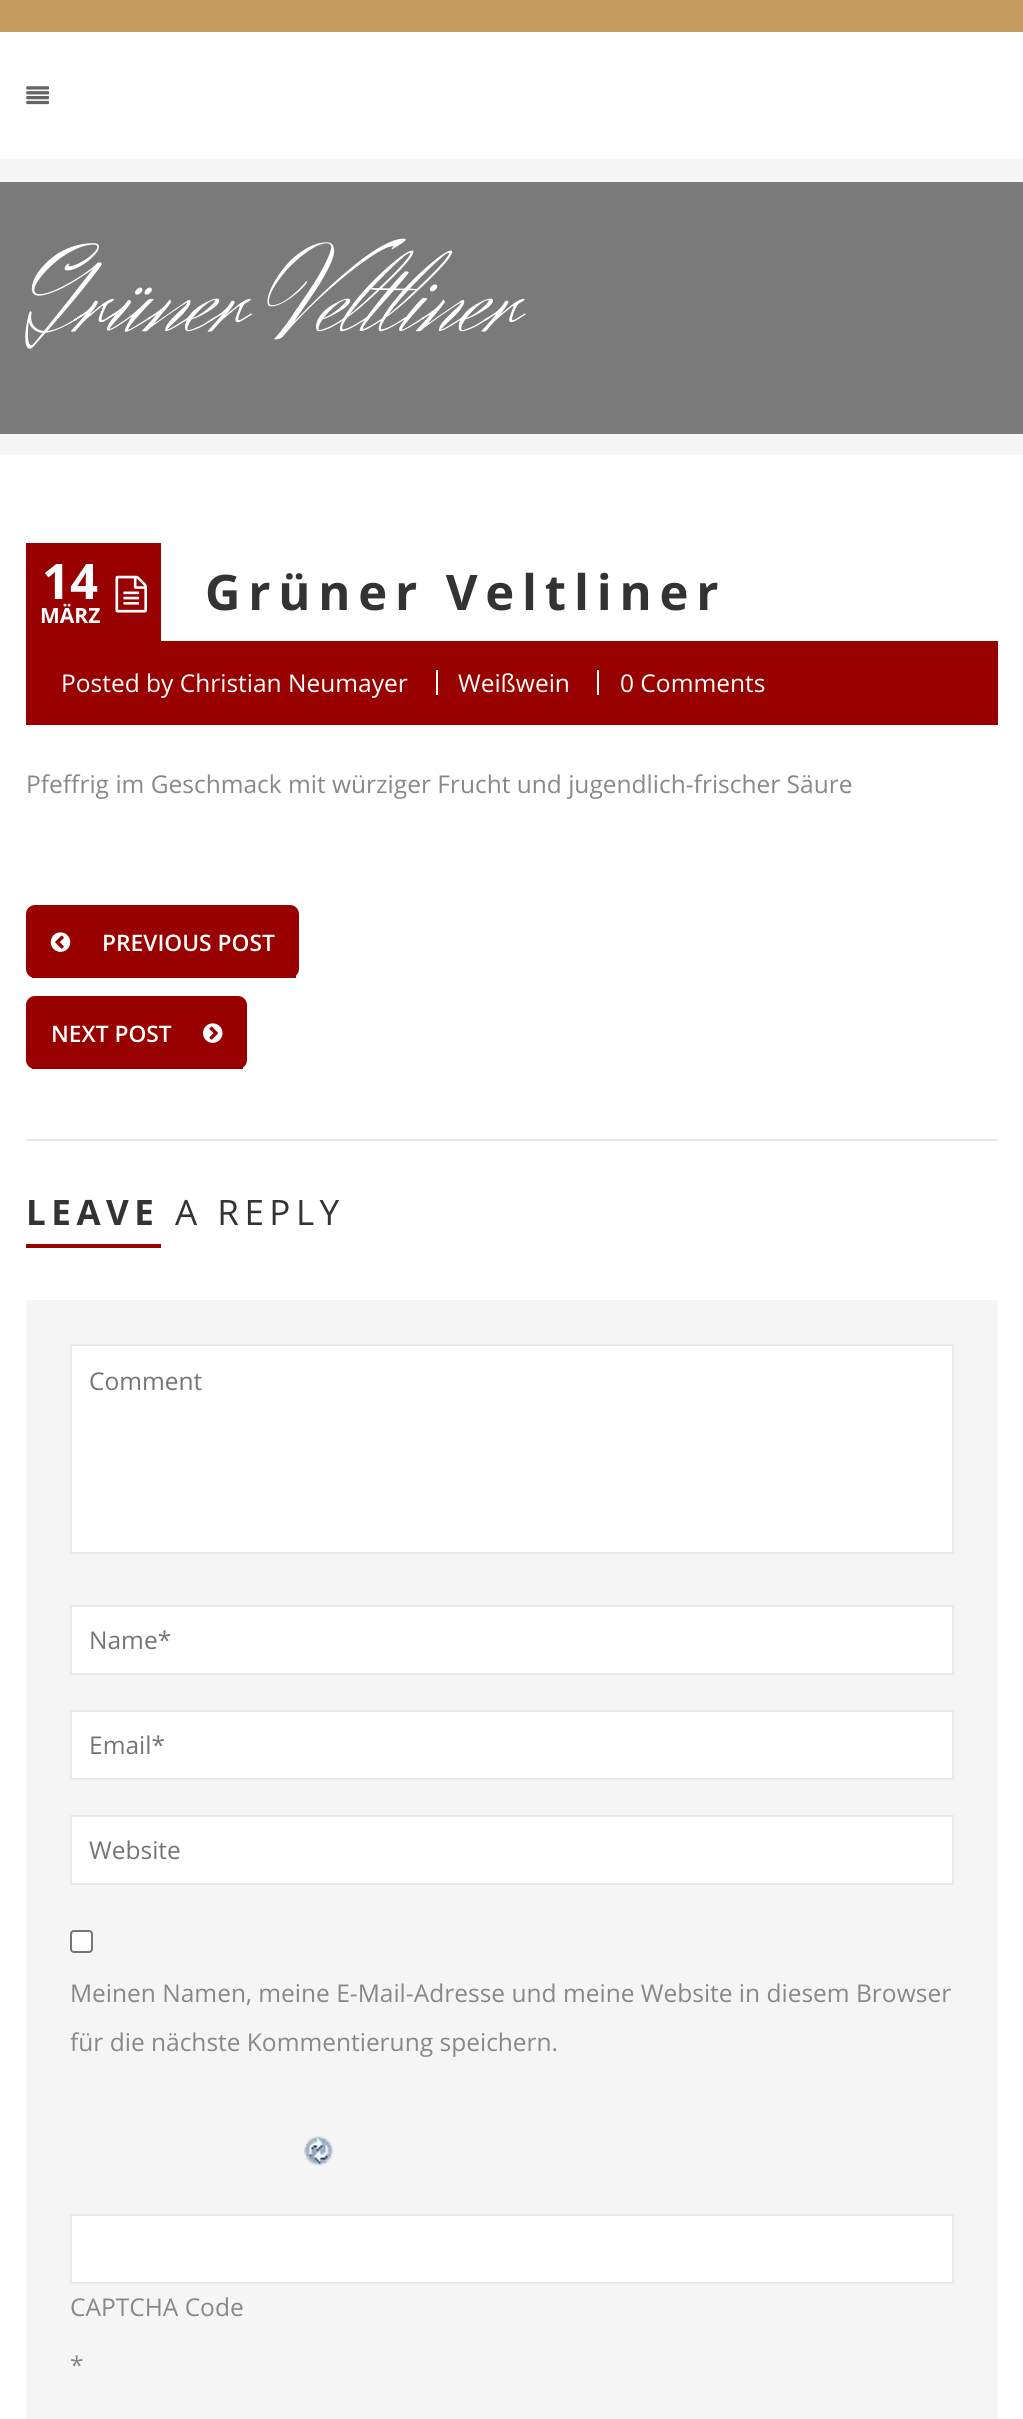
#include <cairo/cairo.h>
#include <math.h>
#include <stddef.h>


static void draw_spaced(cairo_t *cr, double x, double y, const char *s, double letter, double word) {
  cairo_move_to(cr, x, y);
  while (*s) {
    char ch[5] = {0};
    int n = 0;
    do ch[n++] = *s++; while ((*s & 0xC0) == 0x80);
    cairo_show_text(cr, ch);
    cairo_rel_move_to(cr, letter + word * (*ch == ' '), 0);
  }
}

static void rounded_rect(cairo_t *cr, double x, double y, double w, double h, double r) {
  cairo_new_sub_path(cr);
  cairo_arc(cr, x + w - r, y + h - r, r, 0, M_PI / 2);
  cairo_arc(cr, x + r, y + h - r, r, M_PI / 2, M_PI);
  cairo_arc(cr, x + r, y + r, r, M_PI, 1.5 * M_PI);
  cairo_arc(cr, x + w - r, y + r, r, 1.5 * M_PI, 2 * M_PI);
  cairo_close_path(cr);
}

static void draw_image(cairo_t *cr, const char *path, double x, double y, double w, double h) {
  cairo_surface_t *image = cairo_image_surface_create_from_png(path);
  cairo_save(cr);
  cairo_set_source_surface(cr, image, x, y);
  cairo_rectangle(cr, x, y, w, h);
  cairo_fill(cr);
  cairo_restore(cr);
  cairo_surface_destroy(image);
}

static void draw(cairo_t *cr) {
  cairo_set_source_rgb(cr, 1, 1, 1);
  cairo_paint(cr);
  cairo_set_source_rgb(cr, 199 / 255.0, 156 / 255.0, 96 / 255.0);
  cairo_rectangle(cr, 0, 0, 1023, 32);
  cairo_fill(cr);
  draw_image(cr, "images/1.png", 26, 86, 23, 19);
  cairo_set_source_rgb(cr, 245 / 255.0, 245 / 255.0, 245 / 255.0);
  cairo_rectangle(cr, 0, 159, 1023, 296);
  cairo_fill(cr);
  cairo_set_source_rgb(cr, 122 / 255.0, 122 / 255.0, 122 / 255.0);
  cairo_rectangle(cr, 0, 182, 1023, 252);
  cairo_fill(cr);
  cairo_set_source_rgb(cr, 153 / 255.0, 0, 0);
  cairo_rectangle(cr, 26, 543, 135, 98);
  cairo_fill(cr);
  draw_image(cr, "images/2.png", 115, 575, 32, 38);
  cairo_rectangle(cr, 26, 641, 972, 84);
  cairo_fill(cr);
  cairo_set_source_rgb(cr, 1, 1, 1);
  cairo_rectangle(cr, 436, 670, 2, 25);
  cairo_fill(cr);
  cairo_rectangle(cr, 597, 670, 2, 25);
  cairo_fill(cr);
  cairo_set_source_rgb(cr, 153 / 255.0, 0, 0);
  rounded_rect(cr, 26, 905, 273, 73, 9);
  cairo_fill(cr);
  cairo_rectangle(cr, 32, 975, 264, 3);
  cairo_fill(cr);
  draw_image(cr, "images/3.png", 50, 932, 21, 20);
  rounded_rect(cr, 26, 996, 221, 73, 9);
  cairo_fill(cr);
  cairo_rectangle(cr, 32, 1067, 211, 2);
  cairo_fill(cr);
  draw_image(cr, "images/4.png", 203, 1023, 20, 20);
  cairo_set_source_rgb(cr, 233 / 255.0, 233 / 255.0, 233 / 255.0);
  cairo_rectangle(cr, 26, 1139, 972, 2);
  cairo_fill(cr);
  cairo_set_source_rgb(cr, 153 / 255.0, 0, 0);
  cairo_rectangle(cr, 26, 1244, 135, 4);
  cairo_fill(cr);
  cairo_set_source_rgb(cr, 245 / 255.0, 245 / 255.0, 245 / 255.0);
  cairo_rectangle(cr, 26, 1300, 972, 1119);
  cairo_fill(cr);
  cairo_set_source_rgb(cr, 1, 1, 1);
  cairo_rectangle(cr, 71, 1345, 882, 208);
  cairo_fill_preserve(cr);
  cairo_set_source_rgb(cr, 233 / 255.0, 233 / 255.0, 233 / 255.0);
  cairo_stroke(cr);
  cairo_set_source_rgb(cr, 1, 1, 1);
  cairo_rectangle(cr, 71, 1606, 882, 68);
  cairo_fill_preserve(cr);
  cairo_set_source_rgb(cr, 233 / 255.0, 233 / 255.0, 233 / 255.0);
  cairo_stroke(cr);
  cairo_set_source_rgb(cr, 1, 1, 1);
  cairo_rectangle(cr, 71, 1711, 882, 68);
  cairo_fill_preserve(cr);
  cairo_set_source_rgb(cr, 233 / 255.0, 233 / 255.0, 233 / 255.0);
  cairo_stroke(cr);
  cairo_set_source_rgb(cr, 1, 1, 1);
  cairo_rectangle(cr, 71, 1816, 882, 68);
  cairo_fill_preserve(cr);
  cairo_set_source_rgb(cr, 233 / 255.0, 233 / 255.0, 233 / 255.0);
  cairo_stroke(cr);
  cairo_set_source_rgb(cr, 1, 1, 1);
  rounded_rect(cr, 71, 1931, 21, 21, 3);
  cairo_fill_preserve(cr);
  cairo_set_source_rgb(cr, 118 / 255.0, 118 / 255.0, 118 / 255.0);
  cairo_stroke(cr);
  draw_image(cr, "images/5.png", 304, 2136, 29, 30);
  cairo_set_source_rgb(cr, 1, 1, 1);
  cairo_rectangle(cr, 71, 2215, 882, 68);
  cairo_fill_preserve(cr);
  cairo_set_source_rgb(cr, 233 / 255.0, 233 / 255.0, 233 / 255.0);
  cairo_stroke(cr);
  cairo_select_font_face(cr, "Herr Von Muellerhoff", CAIRO_FONT_SLANT_NORMAL, CAIRO_FONT_WEIGHT_NORMAL);
  cairo_set_font_size(cr, 119);
  cairo_set_source_rgb(cr, 1, 1, 1);
  cairo_move_to(cr, 26, 331);
  cairo_show_text(cr, "Grüner Veltliner");
  cairo_select_font_face(cr, "Open Sans", CAIRO_FONT_SLANT_NORMAL, CAIRO_FONT_WEIGHT_BOLD);
  cairo_set_font_size(cr, 49);
  cairo_move_to(cr, 42, 599);
  cairo_show_text(cr, "14");
  cairo_set_font_size(cr, 21);
  cairo_move_to(cr, 40, 623);
  cairo_show_text(cr, "MÄRZ");
  cairo_set_font_size(cr, 49);
  cairo_set_source_rgb(cr, 51 / 255.0, 51 / 255.0, 51 / 255.0);
  draw_spaced(cr, 205, 610, "Grüner Veltliner", 7.8, 0);
  cairo_select_font_face(cr, "Open Sans", CAIRO_FONT_SLANT_NORMAL, CAIRO_FONT_WEIGHT_NORMAL);
  cairo_set_font_size(cr, 24.5);
  cairo_set_source_rgb(cr, 1, 1, 1);
  cairo_move_to(cr, 61, 692);
  cairo_show_text(cr, "Posted by Christian Neumayer");
  cairo_move_to(cr, 458, 692);
  cairo_show_text(cr, "Weißwein");
  cairo_move_to(cr, 620, 692);
  cairo_show_text(cr, "0 Comments");
  cairo_set_source_rgb(cr, 136 / 255.0, 136 / 255.0, 136 / 255.0);
  cairo_move_to(cr, 26, 793);
  cairo_show_text(cr, "Pfeffrig im Geschmack mit würziger Frucht und jugendlich-frischer Säure");
  cairo_select_font_face(cr, "Open Sans SemiBold", CAIRO_FONT_SLANT_NORMAL, CAIRO_FONT_WEIGHT_NORMAL);
  cairo_set_font_size(cr, 22.75);
  cairo_set_source_rgb(cr, 1, 1, 1);
  cairo_move_to(cr, 102, 951);
  cairo_show_text(cr, "PREVIOUS POST");
  cairo_move_to(cr, 51, 1042);
  cairo_show_text(cr, "NEXT POST");
  cairo_select_font_face(cr, "Open Sans", CAIRO_FONT_SLANT_NORMAL, CAIRO_FONT_WEIGHT_BOLD);
  cairo_set_font_size(cr, 35);
  cairo_set_source_rgb(cr, 51 / 255.0, 51 / 255.0, 51 / 255.0);
  draw_spaced(cr, 26, 1225, "LEAVE", 5.5, 0);
  cairo_select_font_face(cr, "Open Sans", CAIRO_FONT_SLANT_NORMAL, CAIRO_FONT_WEIGHT_NORMAL);
  draw_spaced(cr, 175, 1225, "A REPLY", 5.5, 0);
  cairo_set_font_size(cr, 24.5);
  cairo_set_source_rgb(cr, 117 / 255.0, 117 / 255.0, 117 / 255.0);
  cairo_move_to(cr, 89, 1390);
  cairo_show_text(cr, "Comment");
  cairo_move_to(cr, 89, 1649);
  cairo_show_text(cr, "Name*");
  cairo_move_to(cr, 89, 1754);
  cairo_show_text(cr, "Email*");
  cairo_move_to(cr, 89, 1859);
  cairo_show_text(cr, "Website");
  cairo_set_source_rgb(cr, 136 / 255.0, 136 / 255.0, 136 / 255.0);
  cairo_move_to(cr, 70, 2002);
  cairo_show_text(cr, "Meinen Namen, meine E-Mail-Adresse und meine Website in diesem Browser");
  cairo_move_to(cr, 70, 2051);
  cairo_show_text(cr, "für die nächste Kommentierung speichern.");
  cairo_move_to(cr, 70, 2316);
  cairo_show_text(cr, "CAPTCHA Code");
  cairo_move_to(cr, 70, 2374);
  cairo_show_text(cr, "*");
}

int main(void) {
  cairo_surface_t *surface = cairo_image_surface_create(CAIRO_FORMAT_RGB24, 1023, 2419);
  cairo_t *cr = cairo_create(surface);
  cairo_font_options_t *options = cairo_font_options_create();
  cairo_font_options_set_hint_metrics(options, CAIRO_HINT_METRICS_OFF);
  cairo_font_options_set_hint_style(options, CAIRO_HINT_STYLE_NONE);
  cairo_set_font_options(cr, options);
  cairo_set_miter_limit(cr, 4);
  draw(cr);
  cairo_surface_write_to_png(surface, "out.png");
  cairo_font_options_destroy(options);
  cairo_destroy(cr);
  cairo_surface_destroy(surface);
  return 0;
}
